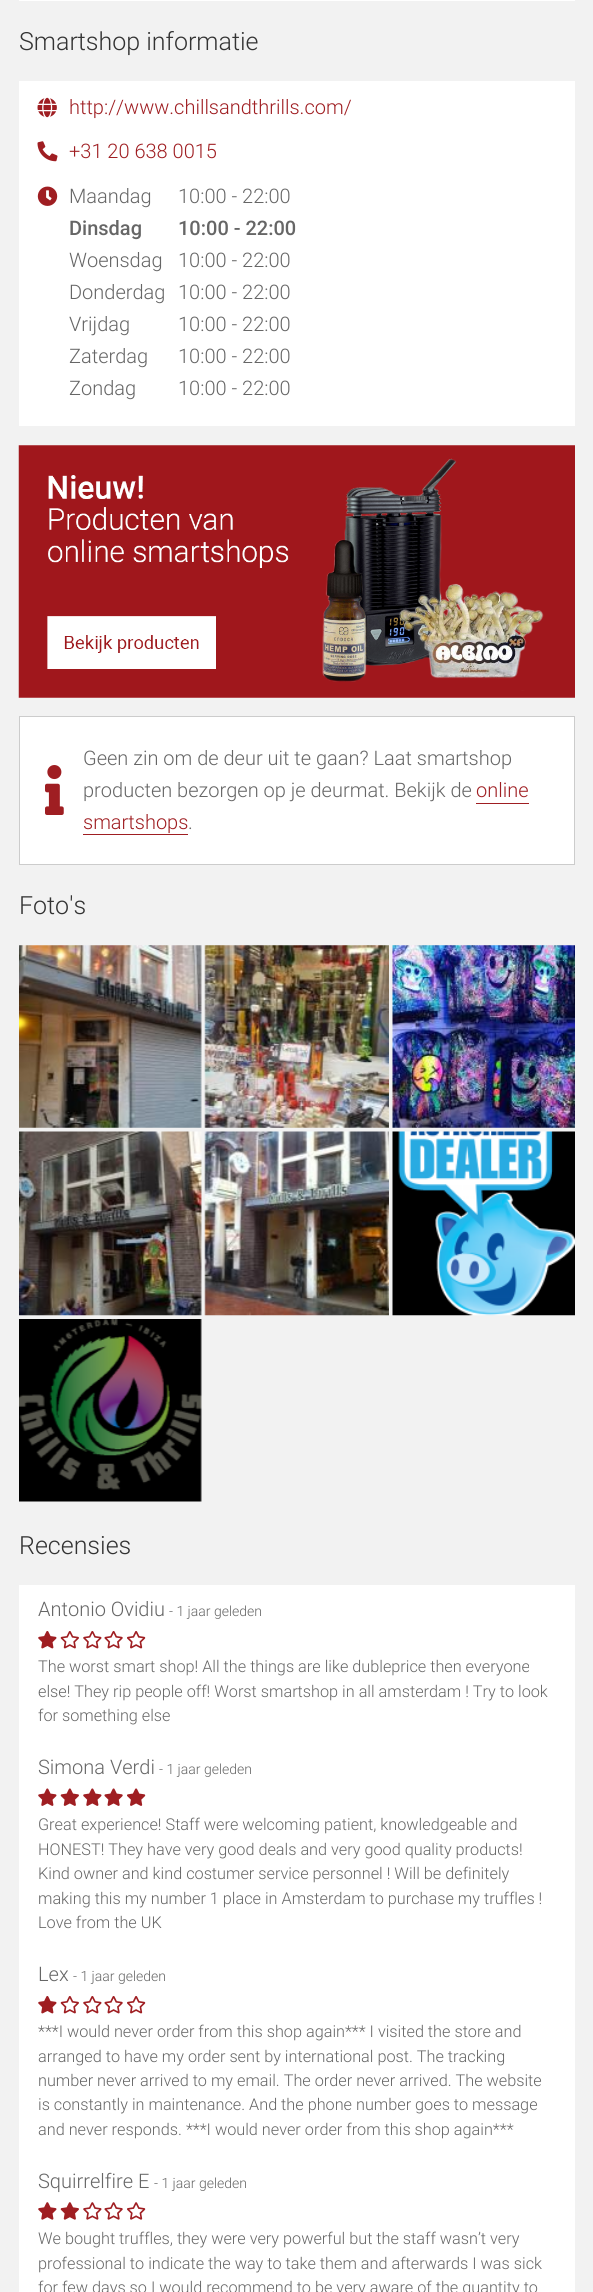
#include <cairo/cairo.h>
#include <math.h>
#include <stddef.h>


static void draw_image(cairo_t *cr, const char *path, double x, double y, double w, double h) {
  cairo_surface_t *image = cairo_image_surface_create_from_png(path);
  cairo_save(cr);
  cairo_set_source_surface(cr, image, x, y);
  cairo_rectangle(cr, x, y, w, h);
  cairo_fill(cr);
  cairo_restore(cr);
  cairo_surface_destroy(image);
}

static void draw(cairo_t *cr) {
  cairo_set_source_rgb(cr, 242 / 255.0, 242 / 255.0, 242 / 255.0);
  cairo_paint(cr);
  cairo_set_source_rgb(cr, 1, 1, 1);
  cairo_rectangle(cr, 19, 0, 556, 1);
  cairo_fill(cr);
  cairo_rectangle(cr, 19, 81, 556, 345);
  cairo_fill(cr);
  draw_image(cr, "images/1.png", 37, 97, 20, 21);
  draw_image(cr, "images/2.png", 37, 141, 21, 21);
  draw_image(cr, "images/3.png", 37, 186, 21, 20);
  draw_image(cr, "images/4.png", 18, 445, 557, 253);
  cairo_rectangle(cr, 19.5, 716.5, 555, 148);
  cairo_fill_preserve(cr);
  cairo_set_source_rgb(cr, 204 / 255.0, 204 / 255.0, 204 / 255.0);
  cairo_set_line_width(cr, 1);
  cairo_stroke(cr);
  draw_image(cr, "images/5.png", 45, 765, 19, 50);
  cairo_set_source_rgb(cr, 159 / 255.0, 30 / 255.0, 34 / 255.0);
  cairo_rectangle(cr, 476, 803, 53, 1);
  cairo_fill(cr);
  cairo_rectangle(cr, 83, 834, 105, 1);
  cairo_fill(cr);
  draw_image(cr, "images/6.png", 19, 945, 183, 183);
  draw_image(cr, "images/7.png", 204, 945, 185, 183);
  draw_image(cr, "images/8.png", 392, 945, 183, 183);
  draw_image(cr, "images/9.png", 19, 1131, 183, 185);
  draw_image(cr, "images/10.png", 204, 1131, 185, 185);
  draw_image(cr, "images/11.png", 392, 1131, 183, 185);
  draw_image(cr, "images/12.png", 19, 1319, 183, 183);
  cairo_set_source_rgb(cr, 1, 1, 1);
  cairo_rectangle(cr, 19, 1585, 556, 707);
  cairo_fill(cr);
  draw_image(cr, "images/13.png", 38, 1631, 19, 18);
  draw_image(cr, "images/14.png", 60, 1631, 19, 18);
  draw_image(cr, "images/15.png", 83, 1631, 19, 18);
  draw_image(cr, "images/16.png", 104, 1631, 19, 18);
  draw_image(cr, "images/17.png", 127, 1631, 19, 18);
  draw_image(cr, "images/18.png", 38, 1788, 19, 18);
  draw_image(cr, "images/19.png", 60, 1788, 19, 18);
  draw_image(cr, "images/18.png", 83, 1788, 19, 18);
  draw_image(cr, "images/20.png", 104, 1788, 19, 18);
  draw_image(cr, "images/21.png", 127, 1788, 19, 18);
  draw_image(cr, "images/13.png", 38, 1996, 19, 18);
  draw_image(cr, "images/14.png", 60, 1996, 19, 18);
  draw_image(cr, "images/15.png", 83, 1996, 19, 18);
  draw_image(cr, "images/16.png", 104, 1996, 19, 18);
  draw_image(cr, "images/17.png", 127, 1996, 19, 18);
  draw_image(cr, "images/22.png", 38, 2202, 19, 18);
  draw_image(cr, "images/23.png", 60, 2202, 19, 18);
  draw_image(cr, "images/24.png", 83, 2202, 19, 18);
  draw_image(cr, "images/25.png", 104, 2202, 19, 18);
  draw_image(cr, "images/26.png", 127, 2202, 19, 18);
  cairo_select_font_face(cr, "Roboto Light", CAIRO_FONT_SLANT_NORMAL, CAIRO_FONT_WEIGHT_NORMAL);
  cairo_set_font_size(cr, 25);
  cairo_set_source_rgb(cr, 51 / 255.0, 51 / 255.0, 51 / 255.0);
  cairo_move_to(cr, 19, 50);
  cairo_show_text(cr, "Smartshop informatie");
  cairo_set_font_size(cr, 20);
  cairo_set_source_rgb(cr, 159 / 255.0, 30 / 255.0, 34 / 255.0);
  cairo_move_to(cr, 69, 114);
  cairo_show_text(cr, "http://www.chillsandthrills.com/");
  cairo_move_to(cr, 69, 158);
  cairo_show_text(cr, "+31 20 638 0015");
  cairo_set_source_rgb(cr, 102 / 255.0, 102 / 255.0, 102 / 255.0);
  cairo_move_to(cr, 69, 203);
  cairo_show_text(cr, "Maandag");
  cairo_move_to(cr, 178, 203);
  cairo_show_text(cr, "10:00 - 22:00");
  cairo_select_font_face(cr, "Roboto Medium", CAIRO_FONT_SLANT_NORMAL, CAIRO_FONT_WEIGHT_NORMAL);
  cairo_move_to(cr, 69, 235);
  cairo_show_text(cr, "Dinsdag");
  cairo_move_to(cr, 178, 235);
  cairo_show_text(cr, "10:00 - 22:00");
  cairo_select_font_face(cr, "Roboto Light", CAIRO_FONT_SLANT_NORMAL, CAIRO_FONT_WEIGHT_NORMAL);
  cairo_move_to(cr, 69, 267);
  cairo_show_text(cr, "Woensdag");
  cairo_move_to(cr, 178, 267);
  cairo_show_text(cr, "10:00 - 22:00");
  cairo_move_to(cr, 69, 299);
  cairo_show_text(cr, "Donderdag");
  cairo_move_to(cr, 178, 299);
  cairo_show_text(cr, "10:00 - 22:00");
  cairo_move_to(cr, 69, 331);
  cairo_show_text(cr, "Vrijdag");
  cairo_move_to(cr, 178, 331);
  cairo_show_text(cr, "10:00 - 22:00");
  cairo_move_to(cr, 69, 363);
  cairo_show_text(cr, "Zaterdag");
  cairo_move_to(cr, 178, 363);
  cairo_show_text(cr, "10:00 - 22:00");
  cairo_move_to(cr, 69, 395);
  cairo_show_text(cr, "Zondag");
  cairo_move_to(cr, 178, 395);
  cairo_show_text(cr, "10:00 - 22:00");
  cairo_move_to(cr, 83, 765);
  cairo_show_text(cr, "Geen zin om de deur uit te gaan? Laat smartshop");
  cairo_move_to(cr, 83, 797);
  cairo_show_text(cr, "producten bezorgen op je deurmat. Bekijk de");
  cairo_set_source_rgb(cr, 159 / 255.0, 30 / 255.0, 34 / 255.0);
  cairo_move_to(cr, 476, 797);
  cairo_show_text(cr, "online");
  cairo_move_to(cr, 83, 829);
  cairo_show_text(cr, "smartshops");
  cairo_set_source_rgb(cr, 102 / 255.0, 102 / 255.0, 102 / 255.0);
  cairo_move_to(cr, 188, 829);
  cairo_show_text(cr, ".");
  cairo_set_font_size(cr, 25);
  cairo_set_source_rgb(cr, 51 / 255.0, 51 / 255.0, 51 / 255.0);
  cairo_move_to(cr, 19, 914);
  cairo_show_text(cr, "Foto's");
  cairo_move_to(cr, 19, 1554);
  cairo_show_text(cr, "Recensies");
  cairo_set_font_size(cr, 20);
  cairo_set_source_rgb(cr, 102 / 255.0, 102 / 255.0, 102 / 255.0);
  cairo_move_to(cr, 38, 1616);
  cairo_show_text(cr, "Antonio Ovidiu");
  cairo_set_font_size(cr, 14);
  cairo_move_to(cr, 169, 1616);
  cairo_show_text(cr, "- 1 jaar geleden");
  cairo_set_font_size(cr, 16.25);
  cairo_move_to(cr, 38, 1672);
  cairo_show_text(cr, "The worst smart shop! All the things are like dubleprice then everyone");
  cairo_move_to(cr, 38, 1697);
  cairo_show_text(cr, "else! They rip people off! Worst smartshop in all amsterdam ! Try to look");
  cairo_move_to(cr, 38, 1721);
  cairo_show_text(cr, "for something else");
  cairo_set_font_size(cr, 20);
  cairo_move_to(cr, 38, 1774);
  cairo_show_text(cr, "Simona Verdi");
  cairo_set_font_size(cr, 14);
  cairo_move_to(cr, 159, 1774);
  cairo_show_text(cr, "- 1 jaar geleden");
  cairo_set_font_size(cr, 16.25);
  cairo_move_to(cr, 38, 1830);
  cairo_show_text(cr, "Great experience! Staff were welcoming patient, knowledgeable and");
  cairo_move_to(cr, 38, 1855);
  cairo_show_text(cr, "HONEST! They have very good deals and very good quality products!");
  cairo_move_to(cr, 38, 1879);
  cairo_show_text(cr, "Kind owner and kind costumer service personnel ! Will be definitely");
  cairo_move_to(cr, 38, 1904);
  cairo_show_text(cr, "making this my number 1 place in Amsterdam to purchase my truffles !");
  cairo_move_to(cr, 38, 1928);
  cairo_show_text(cr, "Love from the UK");
  cairo_set_font_size(cr, 20);
  cairo_move_to(cr, 38, 1981);
  cairo_show_text(cr, "Lex");
  cairo_set_font_size(cr, 14);
  cairo_move_to(cr, 73, 1981);
  cairo_show_text(cr, "- 1 jaar geleden");
  cairo_set_font_size(cr, 16.25);
  cairo_move_to(cr, 38, 2037);
  cairo_show_text(cr, "***I would never order from this shop again*** I visited the store and");
  cairo_move_to(cr, 38, 2062);
  cairo_show_text(cr, "arranged to have my order sent by international post. The tracking");
  cairo_move_to(cr, 38, 2086);
  cairo_show_text(cr, "number never arrived to my email. The order never arrived. The website");
  cairo_move_to(cr, 38, 2110);
  cairo_show_text(cr, "is constantly in maintenance. And the phone number goes to message");
  cairo_move_to(cr, 38, 2135);
  cairo_show_text(cr, "and never responds. ***I would never order from this shop again***");
  cairo_set_font_size(cr, 20);
  cairo_move_to(cr, 38, 2188);
  cairo_show_text(cr, "Squirrelfire E");
  cairo_set_font_size(cr, 14);
  cairo_move_to(cr, 154, 2188);
  cairo_show_text(cr, "- 1 jaar geleden");
  cairo_set_font_size(cr, 16.25);
  cairo_move_to(cr, 38, 2244);
  cairo_show_text(cr, "We bought truffles, they were very powerful but the staff wasn’t very");
  cairo_move_to(cr, 38, 2269);
  cairo_show_text(cr, "professional to indicate the way to take them and afterwards I was sick");
  cairo_move_to(cr, 38, 2293);
  cairo_show_text(cr, "for few days so I would recommend to be very aware of the quantity to");
}

int main(void) {
  cairo_surface_t *surface = cairo_image_surface_create(CAIRO_FORMAT_RGB24, 593, 2292);
  cairo_t *cr = cairo_create(surface);
  cairo_font_options_t *options = cairo_font_options_create();
  cairo_font_options_set_hint_metrics(options, CAIRO_HINT_METRICS_OFF);
  cairo_font_options_set_hint_style(options, CAIRO_HINT_STYLE_NONE);
  cairo_set_font_options(cr, options);
  cairo_set_miter_limit(cr, 4);
  draw(cr);
  cairo_surface_write_to_png(surface, "out.png");
  cairo_font_options_destroy(options);
  cairo_destroy(cr);
  cairo_surface_destroy(surface);
  return 0;
}
